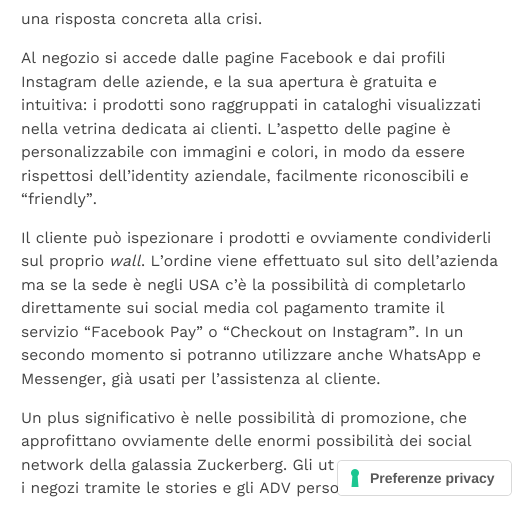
#include <cairo/cairo.h>
#include <math.h>
#include <stddef.h>


static void rounded_rect(cairo_t *cr, double x, double y, double w, double h, double r) {
  cairo_new_sub_path(cr);
  cairo_arc(cr, x + w - r, y + h - r, r, 0, M_PI / 2);
  cairo_arc(cr, x + r, y + h - r, r, M_PI / 2, M_PI);
  cairo_arc(cr, x + r, y + r, r, M_PI, 1.5 * M_PI);
  cairo_arc(cr, x + w - r, y + r, r, 1.5 * M_PI, 2 * M_PI);
  cairo_close_path(cr);
}

static void draw_image(cairo_t *cr, const char *path, double x, double y, double w, double h) {
  cairo_surface_t *image = cairo_image_surface_create_from_png(path);
  cairo_save(cr);
  cairo_set_source_surface(cr, image, x, y);
  cairo_rectangle(cr, x, y, w, h);
  cairo_fill(cr);
  cairo_restore(cr);
  cairo_surface_destroy(image);
}

static void draw(cairo_t *cr) {
  cairo_set_source_rgb(cr, 1, 1, 1);
  cairo_paint(cr);
  cairo_select_font_face(cr, "Work Sans", CAIRO_FONT_SLANT_NORMAL, CAIRO_FONT_WEIGHT_NORMAL);
  cairo_set_font_size(cr, 15.6);
  cairo_set_source_rgb(cr, 66 / 255.0, 66 / 255.0, 66 / 255.0);
  cairo_move_to(cr, 21, 24);
  cairo_show_text(cr, "una risposta concreta alla crisi.");
  cairo_move_to(cr, 21, 63);
  cairo_show_text(cr, "Al negozio si accede dalle pagine Facebook e dai profili");
  cairo_move_to(cr, 21, 87);
  cairo_show_text(cr, "Instagram delle aziende, e la sua apertura è gratuita e");
  cairo_move_to(cr, 21, 110);
  cairo_show_text(cr, "intuitiva: i prodotti sono raggruppati in cataloghi visualizzati");
  cairo_move_to(cr, 21, 134);
  cairo_show_text(cr, "nella vetrina dedicata ai clienti. L’aspetto delle pagine è");
  cairo_move_to(cr, 21, 157);
  cairo_show_text(cr, "personalizzabile con immagini e colori, in modo da essere");
  cairo_move_to(cr, 21, 181);
  cairo_show_text(cr, "rispettosi dell’identity aziendale, facilmente riconoscibili e");
  cairo_move_to(cr, 21, 204);
  cairo_show_text(cr, "“friendly”.");
  cairo_move_to(cr, 21, 243);
  cairo_show_text(cr, "Il cliente può ispezionare i prodotti e ovviamente condividerli");
  cairo_move_to(cr, 21, 266);
  cairo_show_text(cr, "sul proprio");
  cairo_select_font_face(cr, "Work Sans", CAIRO_FONT_SLANT_ITALIC, CAIRO_FONT_WEIGHT_NORMAL);
  cairo_move_to(cr, 109, 266);
  cairo_show_text(cr, "wall");
  cairo_select_font_face(cr, "Work Sans", CAIRO_FONT_SLANT_NORMAL, CAIRO_FONT_WEIGHT_NORMAL);
  cairo_move_to(cr, 141, 266);
  cairo_show_text(cr, ". L’ordine viene effettuato sul sito dell’azienda");
  cairo_move_to(cr, 21, 290);
  cairo_show_text(cr, "ma se la sede è negli USA c’è la possibilità di completarlo");
  cairo_move_to(cr, 21, 313);
  cairo_show_text(cr, "direttamente sui social media col pagamento tramite il");
  cairo_move_to(cr, 21, 337);
  cairo_show_text(cr, "servizio “Facebook Pay” o “Checkout on Instagram”. In un");
  cairo_move_to(cr, 21, 360);
  cairo_show_text(cr, "secondo momento si potranno utilizzare anche WhatsApp e");
  cairo_move_to(cr, 21, 384);
  cairo_show_text(cr, "Messenger, già usati per l’assistenza al cliente.");
  cairo_move_to(cr, 21, 423);
  cairo_show_text(cr, "Un plus significativo è nelle possibilità di promozione, che");
  cairo_move_to(cr, 21, 446);
  cairo_show_text(cr, "approfittano ovviamente delle enormi possibilità dei social");
  cairo_move_to(cr, 21, 470);
  cairo_show_text(cr, "network della galassia Zuckerberg. Gli ut");
  cairo_move_to(cr, 21, 493);
  cairo_show_text(cr, "i negozi tramite le stories e gli ADV perso");
  rounded_rect(cr, 337.5, 460.5, 174, 35, 4.5);
  cairo_set_source_rgba(cr, 0, 0, 0, 0.15);
  cairo_set_line_width(cr, 1);
  cairo_stroke(cr);
  cairo_set_source_rgb(cr, 1, 1, 1);
  rounded_rect(cr, 338, 461, 173, 34, 4);
  cairo_fill(cr);
  draw_image(cr, "images/1.png", 351, 469, 8, 18);
  cairo_select_font_face(cr, "Liberation Sans", CAIRO_FONT_SLANT_NORMAL, CAIRO_FONT_WEIGHT_BOLD);
  cairo_set_font_size(cr, 14);
  cairo_set_source_rgb(cr, 89 / 255.0, 89 / 255.0, 89 / 255.0);
  cairo_move_to(cr, 370, 483);
  cairo_show_text(cr, "Preferenze privacy");
}

int main(void) {
  cairo_surface_t *surface = cairo_image_surface_create(CAIRO_FORMAT_RGB24, 527, 511);
  cairo_t *cr = cairo_create(surface);
  cairo_font_options_t *options = cairo_font_options_create();
  cairo_font_options_set_hint_metrics(options, CAIRO_HINT_METRICS_OFF);
  cairo_font_options_set_hint_style(options, CAIRO_HINT_STYLE_NONE);
  cairo_set_font_options(cr, options);
  cairo_set_miter_limit(cr, 4);
  draw(cr);
  cairo_surface_write_to_png(surface, "out.png");
  cairo_font_options_destroy(options);
  cairo_destroy(cr);
  cairo_surface_destroy(surface);
  return 0;
}
